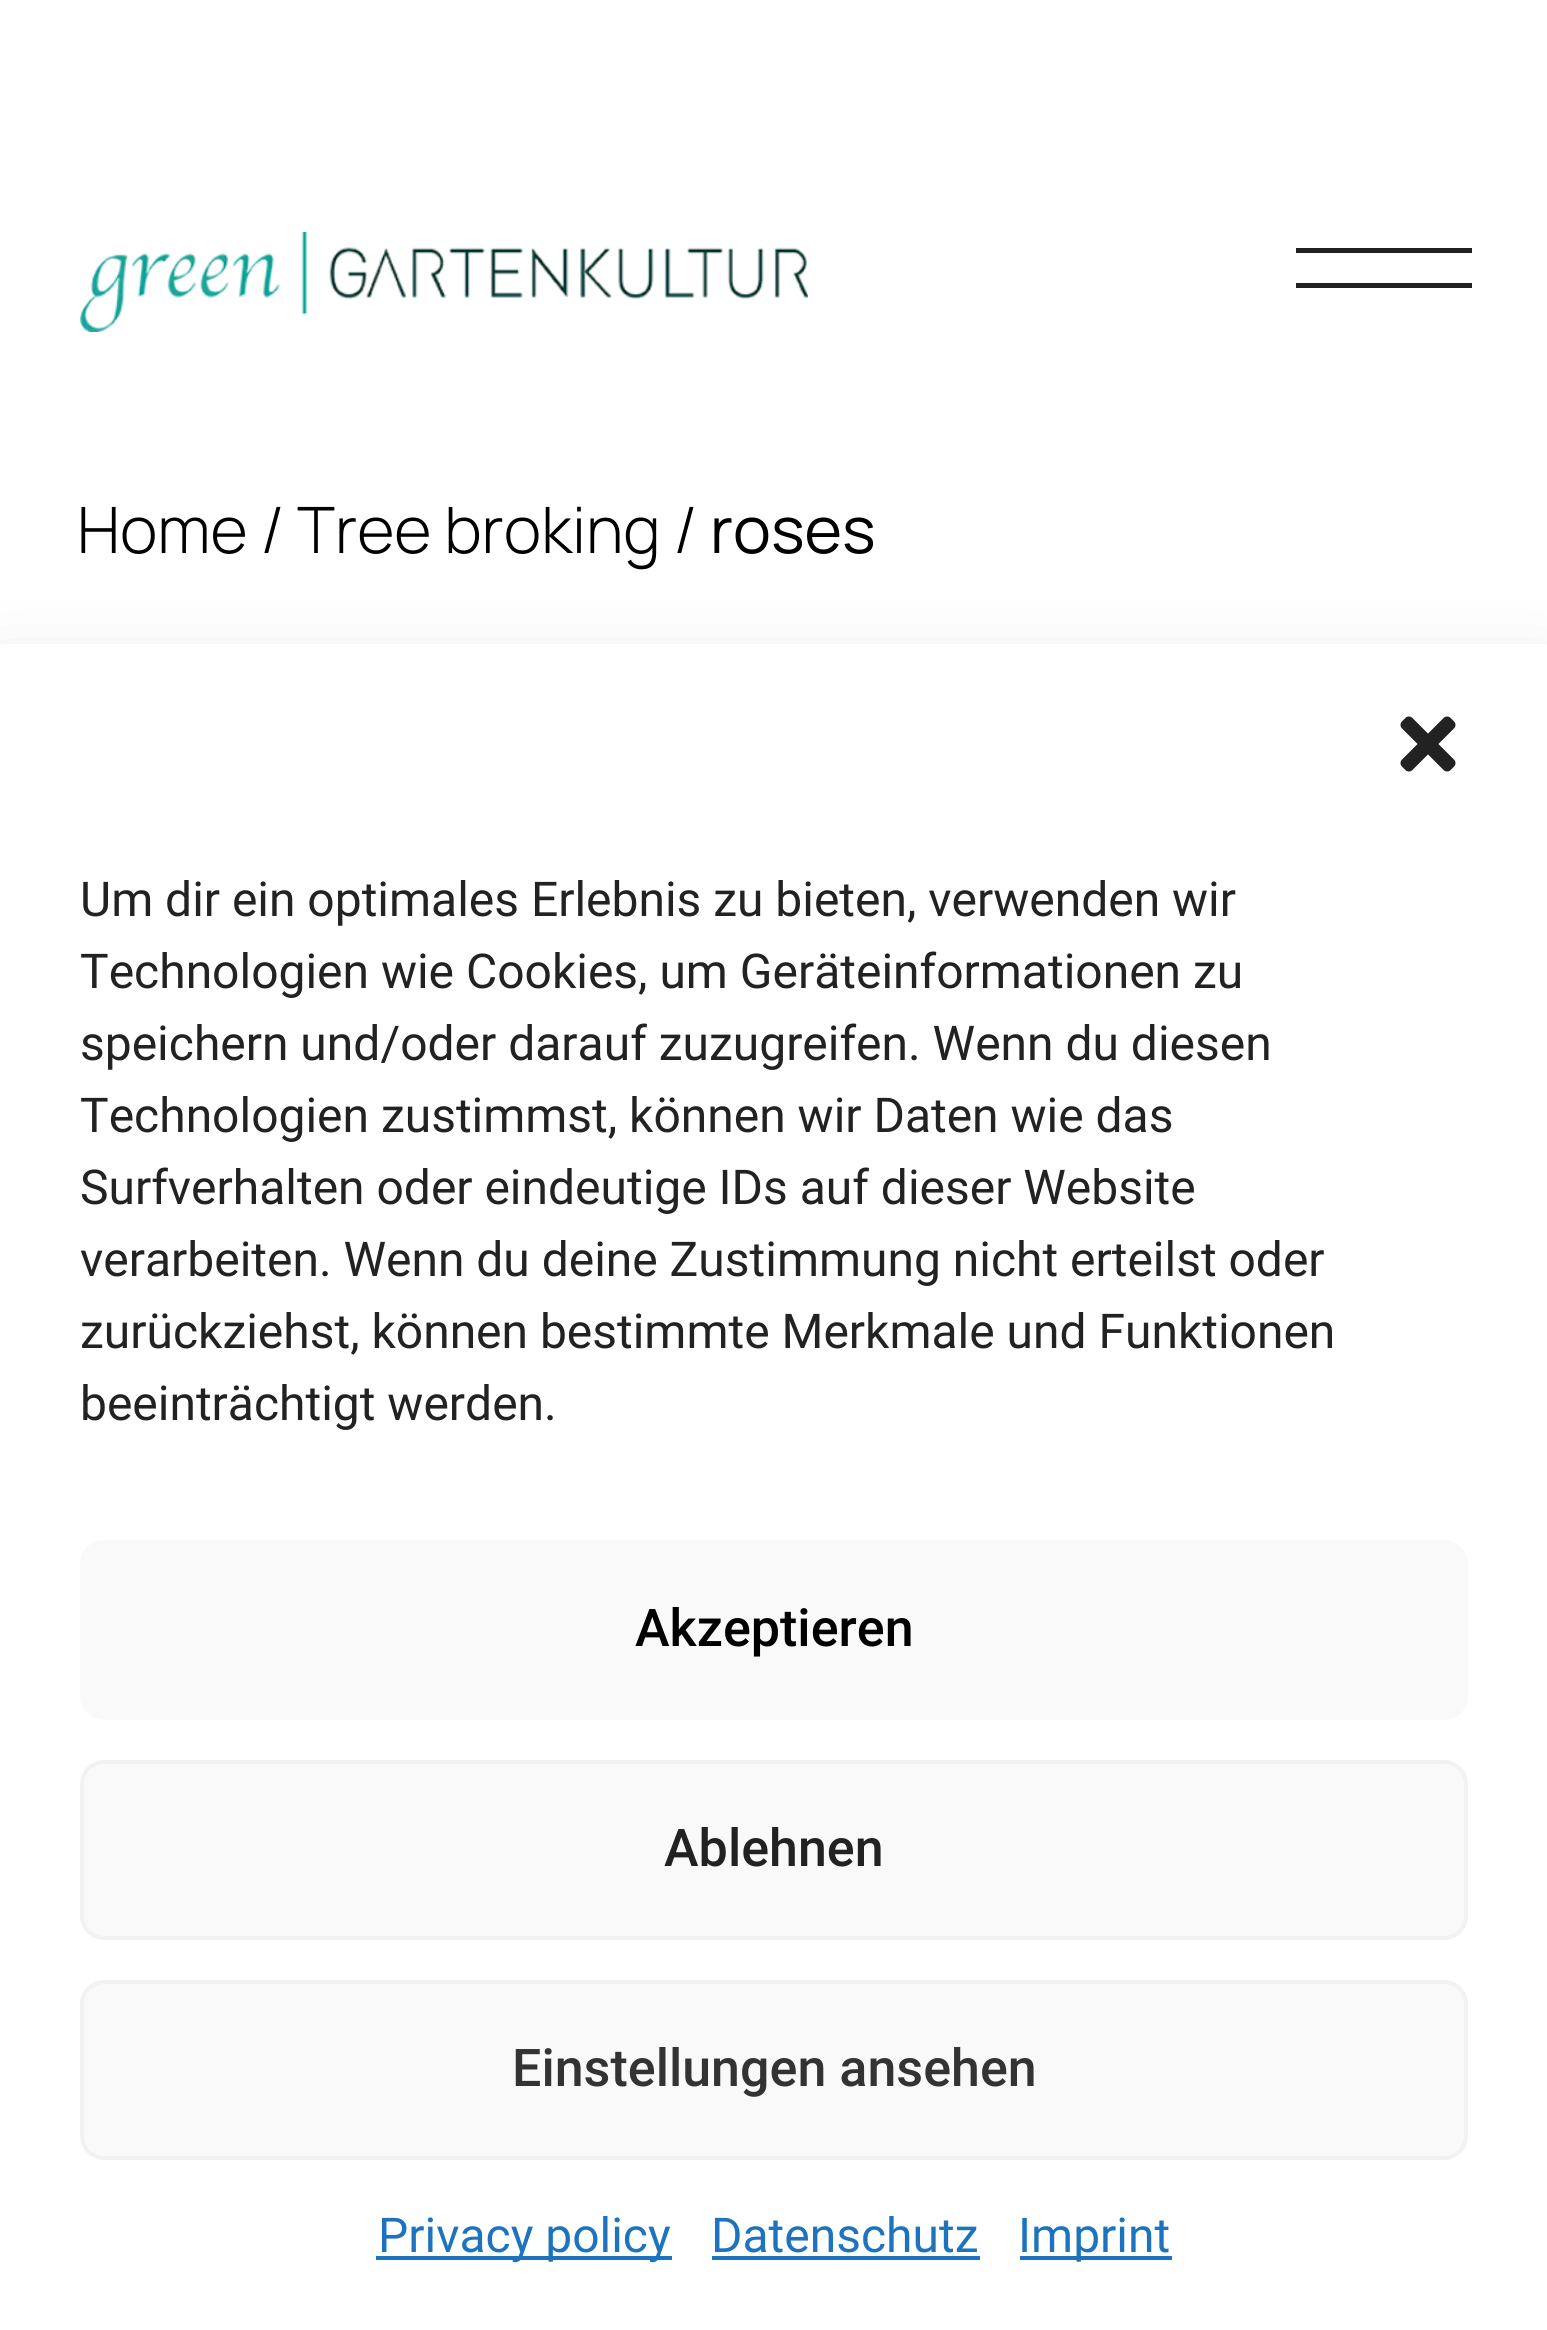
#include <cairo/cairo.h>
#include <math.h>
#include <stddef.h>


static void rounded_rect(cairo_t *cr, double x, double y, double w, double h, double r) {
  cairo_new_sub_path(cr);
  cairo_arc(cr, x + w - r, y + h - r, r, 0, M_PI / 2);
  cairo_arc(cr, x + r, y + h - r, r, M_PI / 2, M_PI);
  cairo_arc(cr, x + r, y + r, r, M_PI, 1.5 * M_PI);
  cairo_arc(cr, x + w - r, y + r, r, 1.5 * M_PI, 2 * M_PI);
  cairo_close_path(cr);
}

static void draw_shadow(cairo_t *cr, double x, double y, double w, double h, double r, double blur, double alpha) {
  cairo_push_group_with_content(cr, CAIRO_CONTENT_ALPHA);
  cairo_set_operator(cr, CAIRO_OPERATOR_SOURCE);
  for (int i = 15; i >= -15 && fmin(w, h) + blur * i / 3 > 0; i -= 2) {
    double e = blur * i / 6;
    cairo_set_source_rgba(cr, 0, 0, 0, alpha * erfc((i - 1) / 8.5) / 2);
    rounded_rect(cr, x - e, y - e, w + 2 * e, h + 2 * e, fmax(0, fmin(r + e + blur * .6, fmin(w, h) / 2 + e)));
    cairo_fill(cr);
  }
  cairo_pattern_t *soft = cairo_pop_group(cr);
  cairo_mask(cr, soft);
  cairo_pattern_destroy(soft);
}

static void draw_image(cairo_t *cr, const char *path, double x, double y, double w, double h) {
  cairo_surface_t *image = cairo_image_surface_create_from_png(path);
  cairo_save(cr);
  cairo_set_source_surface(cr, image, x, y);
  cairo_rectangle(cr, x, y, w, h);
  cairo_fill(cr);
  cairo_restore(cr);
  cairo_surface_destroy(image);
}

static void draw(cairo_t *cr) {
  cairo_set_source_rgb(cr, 1, 1, 1);
  cairo_paint(cr);
  draw_image(cr, "images/1.png", 80, 232, 728, 100);
  cairo_set_source_rgb(cr, 33 / 255.0, 33 / 255.0, 33 / 255.0);
  cairo_rectangle(cr, 1296, 248, 176, 5);
  cairo_fill(cr);
  cairo_rectangle(cr, 1296, 283, 176, 5);
  cairo_fill(cr);
  cairo_set_source_rgb(cr, 0, 0, 0);
  draw_shadow(cr, 0, 684, 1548, 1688, 0, 40, 0.19);
  cairo_set_source_rgb(cr, 1, 1, 1);
  cairo_rectangle(cr, 0, 644, 1547, 1686);
  cairo_fill(cr);
  draw_image(cr, "images/2.png", 1400, 716, 56, 56);
  cairo_set_source_rgb(cr, 249 / 255.0, 249 / 255.0, 249 / 255.0);
  rounded_rect(cr, 80, 1540, 1388, 180, 24);
  cairo_fill(cr);
  rounded_rect(cr, 82, 1762, 1384, 176, 22);
  cairo_fill_preserve(cr);
  cairo_set_source_rgb(cr, 242 / 255.0, 242 / 255.0, 242 / 255.0);
  cairo_set_line_width(cr, 4);
  cairo_stroke(cr);
  cairo_set_source_rgb(cr, 249 / 255.0, 249 / 255.0, 249 / 255.0);
  rounded_rect(cr, 82, 1982, 1384, 176, 22);
  cairo_fill_preserve(cr);
  cairo_set_source_rgb(cr, 242 / 255.0, 242 / 255.0, 242 / 255.0);
  cairo_stroke(cr);
  cairo_set_source_rgb(cr, 30 / 255.0, 115 / 255.0, 190 / 255.0);
  cairo_rectangle(cr, 376, 2256, 296, 4);
  cairo_fill(cr);
  cairo_rectangle(cr, 712, 2256, 268, 4);
  cairo_fill(cr);
  cairo_rectangle(cr, 1020, 2256, 152, 4);
  cairo_fill(cr);
  cairo_select_font_face(cr, "Manrope Light", CAIRO_FONT_SLANT_NORMAL, CAIRO_FONT_WEIGHT_NORMAL);
  cairo_set_font_size(cr, 64);
  cairo_set_source_rgb(cr, 0, 0, 0);
  cairo_move_to(cr, 77, 553);
  cairo_show_text(cr, "Home / Tree broking /");
  cairo_select_font_face(cr, "Manrope", CAIRO_FONT_SLANT_NORMAL, CAIRO_FONT_WEIGHT_NORMAL);
  cairo_move_to(cr, 710, 553);
  cairo_show_text(cr, "roses");
  cairo_select_font_face(cr, "Roboto", CAIRO_FONT_SLANT_NORMAL, CAIRO_FONT_WEIGHT_NORMAL);
  cairo_set_font_size(cr, 48);
  cairo_set_source_rgb(cr, 34 / 255.0, 34 / 255.0, 34 / 255.0);
  cairo_move_to(cr, 80, 916);
  cairo_show_text(cr, "Um dir ein optimales Erlebnis zu bieten, verwenden wir");
  cairo_move_to(cr, 80, 988);
  cairo_show_text(cr, "Technologien wie Cookies, um Geräteinformationen zu");
  cairo_move_to(cr, 80, 1060);
  cairo_show_text(cr, "speichern und/oder darauf zuzugreifen. Wenn du diesen");
  cairo_move_to(cr, 80, 1132);
  cairo_show_text(cr, "Technologien zustimmst, können wir Daten wie das");
  cairo_move_to(cr, 80, 1204);
  cairo_show_text(cr, "Surfverhalten oder eindeutige IDs auf dieser Website");
  cairo_move_to(cr, 80, 1276);
  cairo_show_text(cr, "verarbeiten. Wenn du deine Zustimmung nicht erteilst oder");
  cairo_move_to(cr, 80, 1348);
  cairo_show_text(cr, "zurückziehst, können bestimmte Merkmale und Funktionen");
  cairo_move_to(cr, 80, 1420);
  cairo_show_text(cr, "beeinträchtigt werden.");
  cairo_select_font_face(cr, "Roboto Medium", CAIRO_FONT_SLANT_NORMAL, CAIRO_FONT_WEIGHT_NORMAL);
  cairo_set_font_size(cr, 52);
  cairo_set_source_rgb(cr, 0, 0, 0);
  cairo_move_to(cr, 635, 1646);
  cairo_show_text(cr, "Akzeptieren");
  cairo_set_source_rgb(cr, 34 / 255.0, 34 / 255.0, 34 / 255.0);
  cairo_move_to(cr, 664, 1866);
  cairo_show_text(cr, "Ablehnen");
  cairo_set_source_rgb(cr, 51 / 255.0, 51 / 255.0, 51 / 255.0);
  cairo_move_to(cr, 512, 2086);
  cairo_show_text(cr, "Einstellungen ansehen");
  cairo_select_font_face(cr, "Roboto", CAIRO_FONT_SLANT_NORMAL, CAIRO_FONT_WEIGHT_NORMAL);
  cairo_set_font_size(cr, 48);
  cairo_set_source_rgb(cr, 30 / 255.0, 115 / 255.0, 190 / 255.0);
  cairo_move_to(cr, 378, 2252);
  cairo_show_text(cr, "Privacy policy");
  cairo_move_to(cr, 711, 2252);
  cairo_show_text(cr, "Datenschutz");
  cairo_move_to(cr, 1018, 2252);
  cairo_show_text(cr, "Imprint");
}

int main(void) {
  cairo_surface_t *surface = cairo_image_surface_create(CAIRO_FORMAT_RGB24, 1547, 2330);
  cairo_t *cr = cairo_create(surface);
  cairo_font_options_t *options = cairo_font_options_create();
  cairo_font_options_set_hint_metrics(options, CAIRO_HINT_METRICS_OFF);
  cairo_font_options_set_hint_style(options, CAIRO_HINT_STYLE_NONE);
  cairo_set_font_options(cr, options);
  cairo_set_miter_limit(cr, 4);
  draw(cr);
  cairo_surface_write_to_png(surface, "out.png");
  cairo_font_options_destroy(options);
  cairo_destroy(cr);
  cairo_surface_destroy(surface);
  return 0;
}
